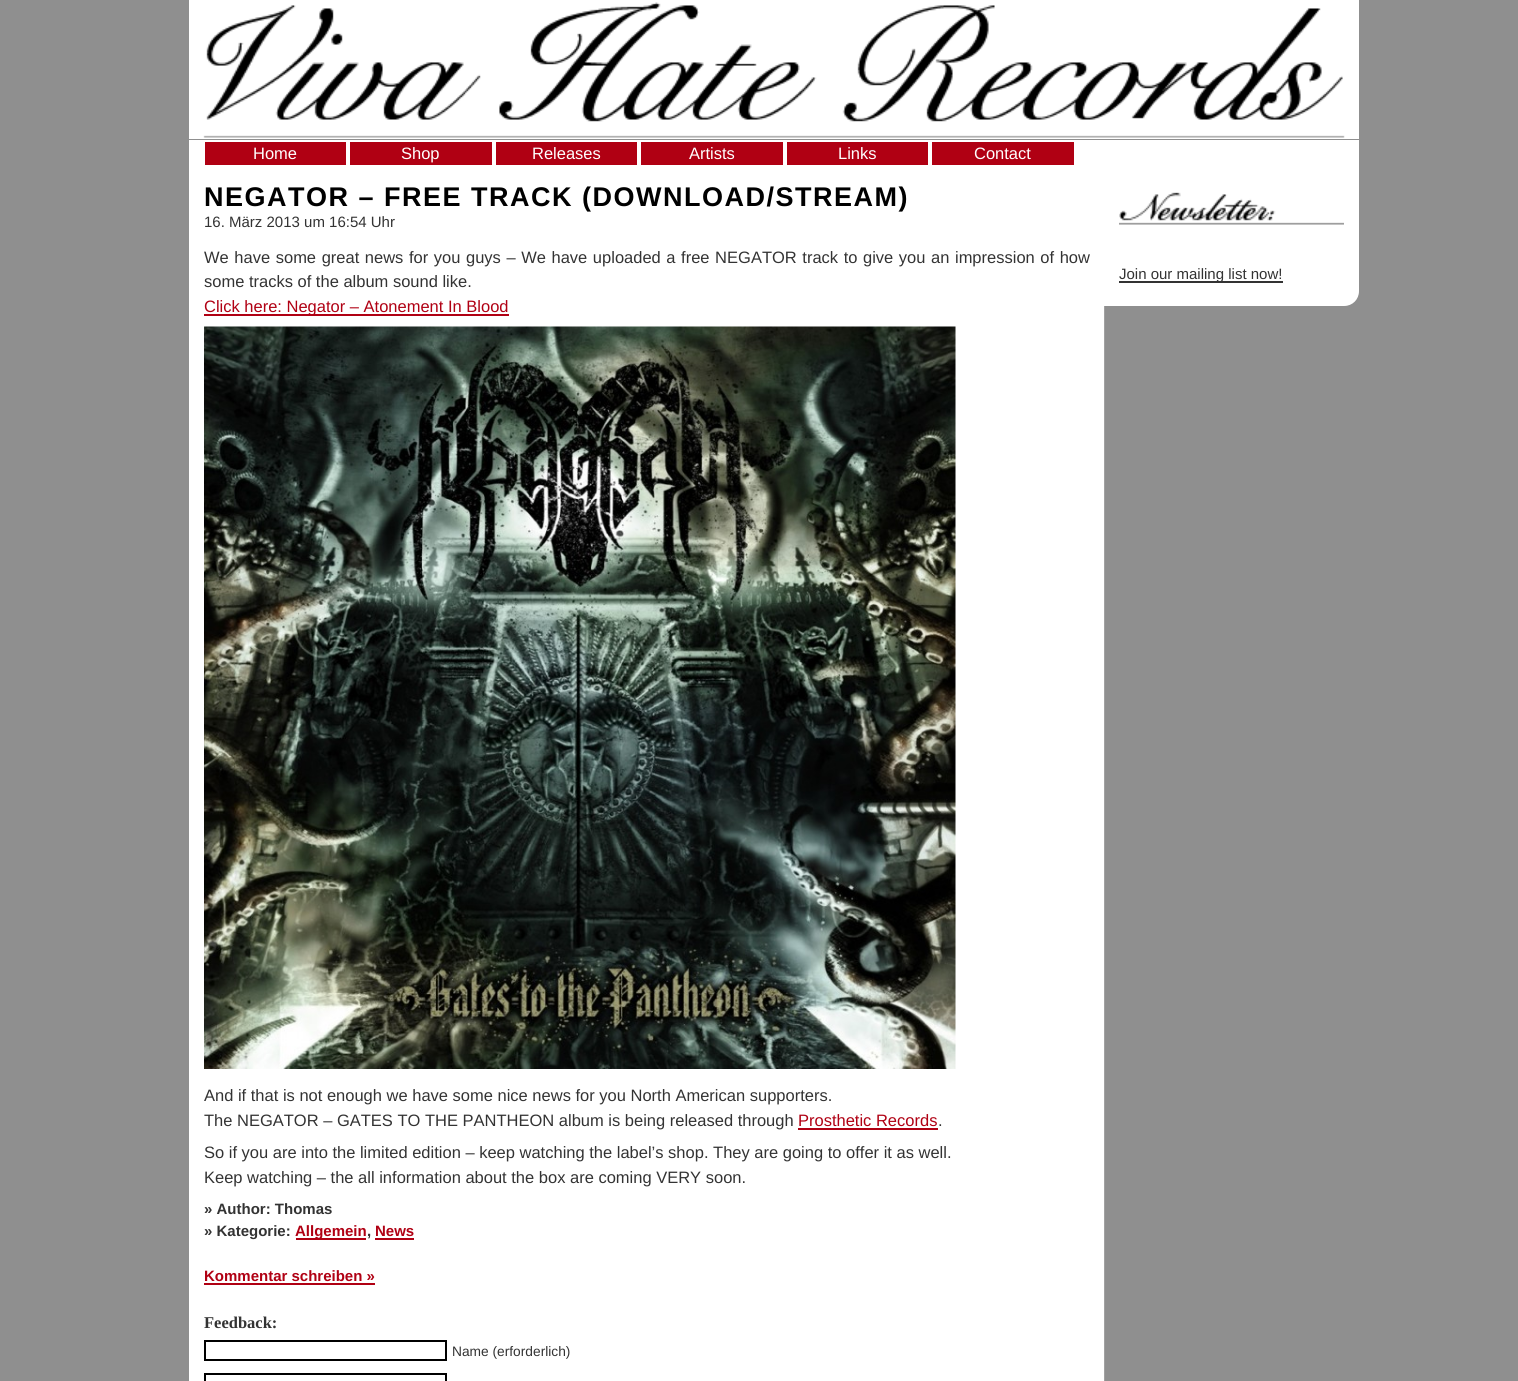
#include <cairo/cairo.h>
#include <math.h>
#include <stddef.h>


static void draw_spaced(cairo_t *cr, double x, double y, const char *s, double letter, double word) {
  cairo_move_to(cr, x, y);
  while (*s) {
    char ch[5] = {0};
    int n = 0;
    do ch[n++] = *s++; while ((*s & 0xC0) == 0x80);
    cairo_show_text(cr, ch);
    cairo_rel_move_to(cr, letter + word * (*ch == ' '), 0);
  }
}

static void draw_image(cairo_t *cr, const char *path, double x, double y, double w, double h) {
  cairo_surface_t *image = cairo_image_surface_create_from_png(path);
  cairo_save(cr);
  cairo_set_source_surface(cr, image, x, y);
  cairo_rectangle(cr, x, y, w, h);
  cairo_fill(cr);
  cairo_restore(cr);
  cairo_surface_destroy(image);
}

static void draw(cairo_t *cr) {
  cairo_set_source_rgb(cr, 143 / 255.0, 143 / 255.0, 143 / 255.0);
  cairo_paint(cr);
  draw_image(cr, "images/1.png", 189, 0, 1170, 139);
  cairo_set_source_rgb(cr, 1, 1, 1);
  cairo_rectangle(cr, 189, 140, 1170, 45);
  cairo_fill(cr);
  cairo_set_source_rgb(cr, 176 / 255.0, 0, 19 / 255.0);
  cairo_rectangle(cr, 205, 142, 141, 23);
  cairo_fill(cr);
  cairo_rectangle(cr, 350, 142, 142, 23);
  cairo_fill(cr);
  cairo_rectangle(cr, 496, 142, 141, 23);
  cairo_fill(cr);
  cairo_rectangle(cr, 641, 142, 142, 23);
  cairo_fill(cr);
  cairo_rectangle(cr, 787, 142, 141, 23);
  cairo_fill(cr);
  cairo_rectangle(cr, 932, 142, 142, 23);
  cairo_fill(cr);
  draw_image(cr, "images/2.png", 1104, 306, 1, 1075);
  cairo_set_source_rgb(cr, 1, 1, 1);
  cairo_rectangle(cr, 189, 185, 915, 1196);
  cairo_fill(cr);
  cairo_set_source_rgb(cr, 176 / 255.0, 0, 19 / 255.0);
  cairo_rectangle(cr, 204, 314, 305, 2);
  cairo_fill(cr);
  draw_image(cr, "images/3.png", 204, 326, 752, 743);
  cairo_rectangle(cr, 798, 1128, 140, 2);
  cairo_fill(cr);
  cairo_rectangle(cr, 296, 1238, 70, 2);
  cairo_fill(cr);
  cairo_rectangle(cr, 375, 1238, 39, 2);
  cairo_fill(cr);
  cairo_rectangle(cr, 204, 1283, 171, 2);
  cairo_fill(cr);
  cairo_rectangle(cr, 205, 1341, 241, 19);
  cairo_set_source_rgb(cr, 0, 0, 0);
  cairo_stroke(cr);
  cairo_rectangle(cr, 205, 1374, 241, 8);
  cairo_stroke(cr);
  cairo_set_source_rgb(cr, 1, 1, 1);
  cairo_new_path(cr);
  cairo_move_to(cr, 1104, 185);
  cairo_line_to(cr, 1359, 185);
  cairo_line_to(cr, 1359, 291);
  cairo_curve_to(cr, 1359, 299.5, 1352.5, 306, 1344, 306);
  cairo_line_to(cr, 1104, 306);
  cairo_close_path(cr);
  cairo_fill(cr);
  draw_image(cr, "images/4.png", 1119, 185, 225, 40);
  cairo_set_source_rgb(cr, 51 / 255.0, 51 / 255.0, 51 / 255.0);
  cairo_rectangle(cr, 1119, 281, 164, 2);
  cairo_fill(cr);
  cairo_select_font_face(cr, "Liberation Sans", CAIRO_FONT_SLANT_NORMAL, CAIRO_FONT_WEIGHT_NORMAL);
  cairo_set_font_size(cr, 16.5);
  cairo_set_source_rgb(cr, 1, 1, 1);
  cairo_move_to(cr, 253, 159);
  cairo_show_text(cr, "Home");
  cairo_move_to(cr, 401, 159);
  cairo_show_text(cr, "Shop");
  cairo_move_to(cr, 532, 159);
  cairo_show_text(cr, "Releases");
  cairo_move_to(cr, 689, 159);
  cairo_show_text(cr, "Artists");
  cairo_move_to(cr, 838, 159);
  cairo_show_text(cr, "Links");
  cairo_move_to(cr, 974, 159);
  cairo_show_text(cr, "Contact");
  cairo_select_font_face(cr, "Liberation Sans", CAIRO_FONT_SLANT_NORMAL, CAIRO_FONT_WEIGHT_BOLD);
  cairo_set_font_size(cr, 27);
  cairo_set_source_rgb(cr, 0, 0, 0);
  draw_spaced(cr, 204, 206, "NEGATOR – FREE TRACK (DOWNLOAD/STREAM)", 1.5, 0);
  cairo_select_font_face(cr, "Liberation Sans", CAIRO_FONT_SLANT_NORMAL, CAIRO_FONT_WEIGHT_NORMAL);
  cairo_set_font_size(cr, 15);
  cairo_set_source_rgb(cr, 51 / 255.0, 51 / 255.0, 51 / 255.0);
  cairo_move_to(cr, 204, 227);
  cairo_show_text(cr, "16. März 2013 um 16:54 Uhr");
  cairo_set_font_size(cr, 16.5);
  draw_spaced(cr, 204, 263, "We have some great news for you guys – We have uploaded a free NEGATOR track to give you an impression of how", 0, 1);
  cairo_move_to(cr, 204, 287);
  cairo_show_text(cr, "some tracks of the album sound like.");
  cairo_set_source_rgb(cr, 176 / 255.0, 0, 19 / 255.0);
  cairo_move_to(cr, 204, 312);
  cairo_show_text(cr, "Click here: Negator – Atonement In Blood");
  cairo_set_source_rgb(cr, 51 / 255.0, 51 / 255.0, 51 / 255.0);
  cairo_move_to(cr, 204, 1101);
  cairo_show_text(cr, "And if that is not enough we have some nice news for you North American supporters.");
  cairo_move_to(cr, 204, 1126);
  cairo_show_text(cr, "The NEGATOR – GATES TO THE PANTHEON album is being released through");
  cairo_set_source_rgb(cr, 176 / 255.0, 0, 19 / 255.0);
  cairo_move_to(cr, 798, 1126);
  cairo_show_text(cr, "Prosthetic Records");
  cairo_set_source_rgb(cr, 51 / 255.0, 51 / 255.0, 51 / 255.0);
  cairo_move_to(cr, 938, 1126);
  cairo_show_text(cr, ".");
  cairo_move_to(cr, 204, 1158);
  cairo_show_text(cr, "So if you are into the limited edition – keep watching the label’s shop. They are going to offer it as well.");
  cairo_move_to(cr, 204, 1183);
  cairo_show_text(cr, "Keep watching – the all information about the box are coming VERY soon.");
  cairo_select_font_face(cr, "Liberation Sans", CAIRO_FONT_SLANT_NORMAL, CAIRO_FONT_WEIGHT_BOLD);
  cairo_set_font_size(cr, 15);
  cairo_move_to(cr, 204, 1214);
  cairo_show_text(cr, "» Author: Thomas");
  cairo_move_to(cr, 204, 1236);
  cairo_show_text(cr, "» Kategorie:");
  cairo_set_source_rgb(cr, 176 / 255.0, 0, 19 / 255.0);
  cairo_move_to(cr, 295, 1236);
  cairo_show_text(cr, "Allgemein");
  cairo_set_source_rgb(cr, 51 / 255.0, 51 / 255.0, 51 / 255.0);
  cairo_move_to(cr, 367, 1236);
  cairo_show_text(cr, ",");
  cairo_set_source_rgb(cr, 176 / 255.0, 0, 19 / 255.0);
  cairo_move_to(cr, 375, 1236);
  cairo_show_text(cr, "News");
  cairo_move_to(cr, 204, 1281);
  cairo_show_text(cr, "Kommentar schreiben »");
  cairo_select_font_face(cr, "Liberation Serif", CAIRO_FONT_SLANT_NORMAL, CAIRO_FONT_WEIGHT_BOLD);
  cairo_set_font_size(cr, 16.5);
  cairo_set_source_rgb(cr, 51 / 255.0, 51 / 255.0, 51 / 255.0);
  cairo_move_to(cr, 204, 1328);
  cairo_show_text(cr, "Feedback:");
  cairo_select_font_face(cr, "Liberation Sans", CAIRO_FONT_SLANT_NORMAL, CAIRO_FONT_WEIGHT_NORMAL);
  cairo_set_font_size(cr, 13.75);
  cairo_move_to(cr, 452, 1356);
  cairo_show_text(cr, "Name (erforderlich)");
  cairo_set_font_size(cr, 15);
  cairo_move_to(cr, 1119, 279);
  cairo_show_text(cr, "Join our mailing list now!");
}

int main(void) {
  cairo_surface_t *surface = cairo_image_surface_create(CAIRO_FORMAT_RGB24, 1518, 1381);
  cairo_t *cr = cairo_create(surface);
  cairo_font_options_t *options = cairo_font_options_create();
  cairo_font_options_set_hint_metrics(options, CAIRO_HINT_METRICS_OFF);
  cairo_font_options_set_hint_style(options, CAIRO_HINT_STYLE_NONE);
  cairo_set_font_options(cr, options);
  cairo_set_miter_limit(cr, 4);
  draw(cr);
  cairo_surface_write_to_png(surface, "out.png");
  cairo_font_options_destroy(options);
  cairo_destroy(cr);
  cairo_surface_destroy(surface);
  return 0;
}
